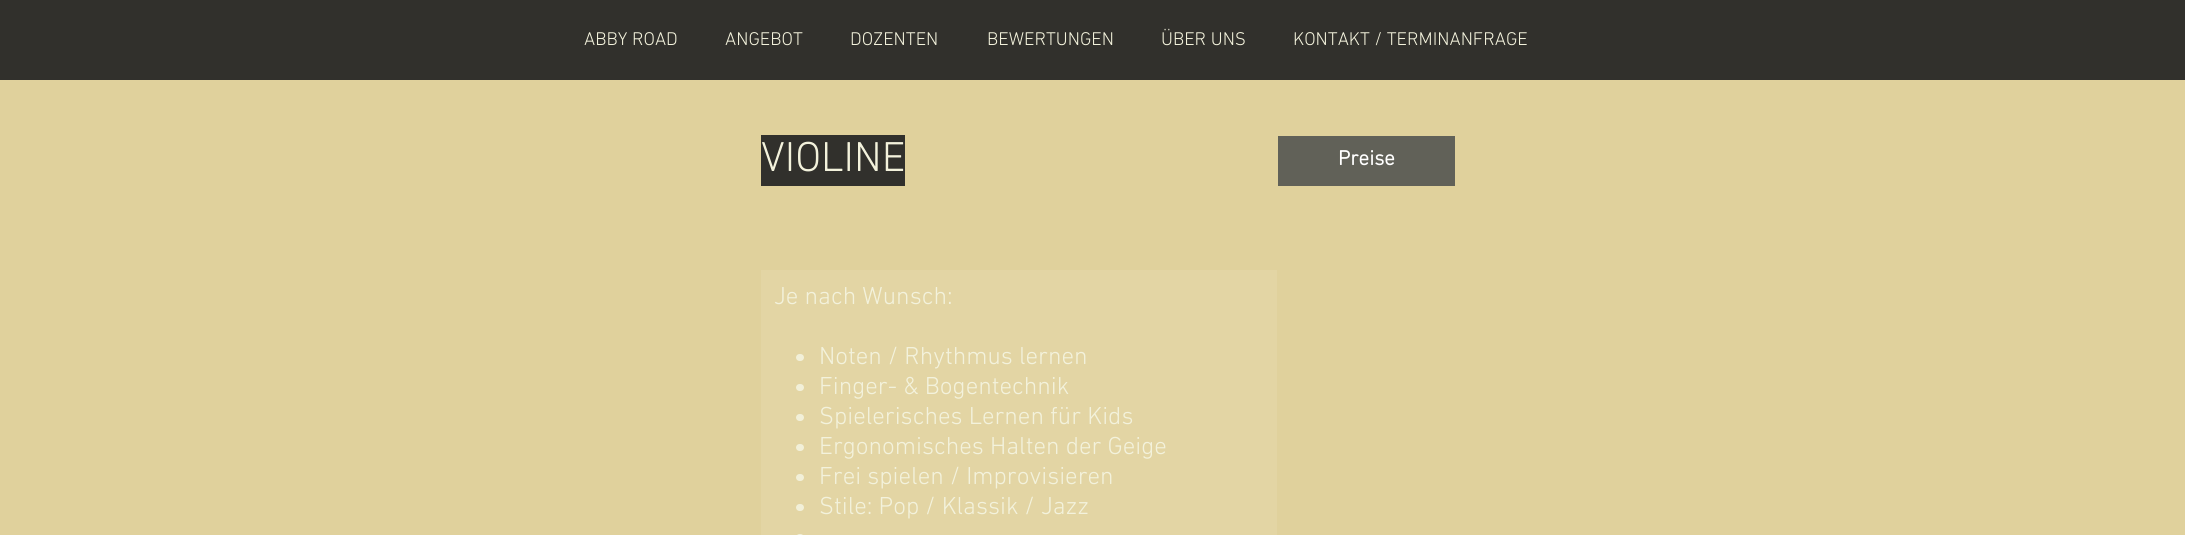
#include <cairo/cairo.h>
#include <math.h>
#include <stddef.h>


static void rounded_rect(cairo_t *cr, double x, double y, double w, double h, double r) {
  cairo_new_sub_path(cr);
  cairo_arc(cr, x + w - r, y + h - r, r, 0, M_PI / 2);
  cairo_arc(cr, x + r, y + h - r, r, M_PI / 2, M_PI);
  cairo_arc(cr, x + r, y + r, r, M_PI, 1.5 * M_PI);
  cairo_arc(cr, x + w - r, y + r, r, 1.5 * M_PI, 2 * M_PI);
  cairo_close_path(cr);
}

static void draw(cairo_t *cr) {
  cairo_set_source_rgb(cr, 224 / 255.0, 209 / 255.0, 156 / 255.0);
  cairo_paint(cr);
  cairo_set_source_rgb(cr, 49 / 255.0, 48 / 255.0, 44 / 255.0);
  cairo_rectangle(cr, 0, 0, 2185, 80);
  cairo_fill(cr);
  cairo_rectangle(cr, 761, 135, 144, 51);
  cairo_fill(cr);
  cairo_set_source_rgb(cr, 97 / 255.0, 97 / 255.0, 88 / 255.0);
  cairo_rectangle(cr, 1278, 136, 177, 50);
  cairo_fill(cr);
  cairo_set_source_rgb(cr, 227 / 255.0, 213 / 255.0, 164 / 255.0);
  cairo_rectangle(cr, 761, 270, 516, 265);
  cairo_fill(cr);
  cairo_set_source_rgb(cr, 242 / 255.0, 240 / 255.0, 217 / 255.0);
  rounded_rect(cr, 796, 354, 8, 7, 3.5);
  cairo_fill(cr);
  rounded_rect(cr, 796, 384, 8, 7, 3.5);
  cairo_fill(cr);
  rounded_rect(cr, 796, 414, 8, 7, 3.5);
  cairo_fill(cr);
  rounded_rect(cr, 796, 444, 8, 7, 3.5);
  cairo_fill(cr);
  rounded_rect(cr, 796, 474, 8, 7, 3.5);
  cairo_fill(cr);
  rounded_rect(cr, 796, 504, 8, 7, 3.5);
  cairo_fill(cr);
  rounded_rect(cr, 796, 534, 8, 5, 3.5);
  cairo_fill(cr);
  cairo_select_font_face(cr, "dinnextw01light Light", CAIRO_FONT_SLANT_NORMAL, CAIRO_FONT_WEIGHT_NORMAL);
  cairo_set_font_size(cr, 18.75);
  cairo_set_source_rgb(cr, 243 / 255.0, 242 / 255.0, 220 / 255.0);
  cairo_move_to(cr, 584, 45);
  cairo_show_text(cr, "ABBY ROAD");
  cairo_move_to(cr, 725, 45);
  cairo_show_text(cr, "ANGEBOT");
  cairo_move_to(cr, 850, 45);
  cairo_show_text(cr, "DOZENTEN");
  cairo_move_to(cr, 987, 45);
  cairo_show_text(cr, "BEWERTUNGEN");
  cairo_move_to(cr, 1161, 45);
  cairo_show_text(cr, "ÜBER UNS");
  cairo_move_to(cr, 1293, 45);
  cairo_show_text(cr, "KONTAKT / TERMINANFRAGE");
  cairo_set_font_size(cr, 42.5);
  cairo_move_to(cr, 761, 171);
  cairo_show_text(cr, "VIOLINE");
  cairo_select_font_face(cr, "dinnextw01light", CAIRO_FONT_SLANT_NORMAL, CAIRO_FONT_WEIGHT_BOLD);
  cairo_set_font_size(cr, 21);
  cairo_set_source_rgb(cr, 1, 1, 1);
  cairo_move_to(cr, 1338, 165);
  cairo_show_text(cr, "Preise");
  cairo_select_font_face(cr, "dinnextw01light Light", CAIRO_FONT_SLANT_NORMAL, CAIRO_FONT_WEIGHT_NORMAL);
  cairo_set_font_size(cr, 25);
  cairo_set_source_rgb(cr, 243 / 255.0, 242 / 255.0, 220 / 255.0);
  cairo_move_to(cr, 774, 304);
  cairo_show_text(cr, "Je nach Wunsch:");
  cairo_move_to(cr, 819, 364);
  cairo_show_text(cr, "Noten / Rhythmus lernen");
  cairo_move_to(cr, 819, 394);
  cairo_show_text(cr, "Finger- & Bogentechnik");
  cairo_move_to(cr, 819, 424);
  cairo_show_text(cr, "Spielerisches Lernen für Kids");
  cairo_move_to(cr, 819, 454);
  cairo_show_text(cr, "Ergonomisches Halten der Geige");
  cairo_move_to(cr, 819, 484);
  cairo_show_text(cr, "Frei spielen / Improvisieren");
  cairo_move_to(cr, 819, 514);
  cairo_show_text(cr, "Stile: Pop / Klassik / Jazz");
}

int main(void) {
  cairo_surface_t *surface = cairo_image_surface_create(CAIRO_FORMAT_RGB24, 2185, 535);
  cairo_t *cr = cairo_create(surface);
  cairo_font_options_t *options = cairo_font_options_create();
  cairo_font_options_set_hint_metrics(options, CAIRO_HINT_METRICS_OFF);
  cairo_font_options_set_hint_style(options, CAIRO_HINT_STYLE_NONE);
  cairo_set_font_options(cr, options);
  cairo_set_miter_limit(cr, 4);
  draw(cr);
  cairo_surface_write_to_png(surface, "out.png");
  cairo_font_options_destroy(options);
  cairo_destroy(cr);
  cairo_surface_destroy(surface);
  return 0;
}
